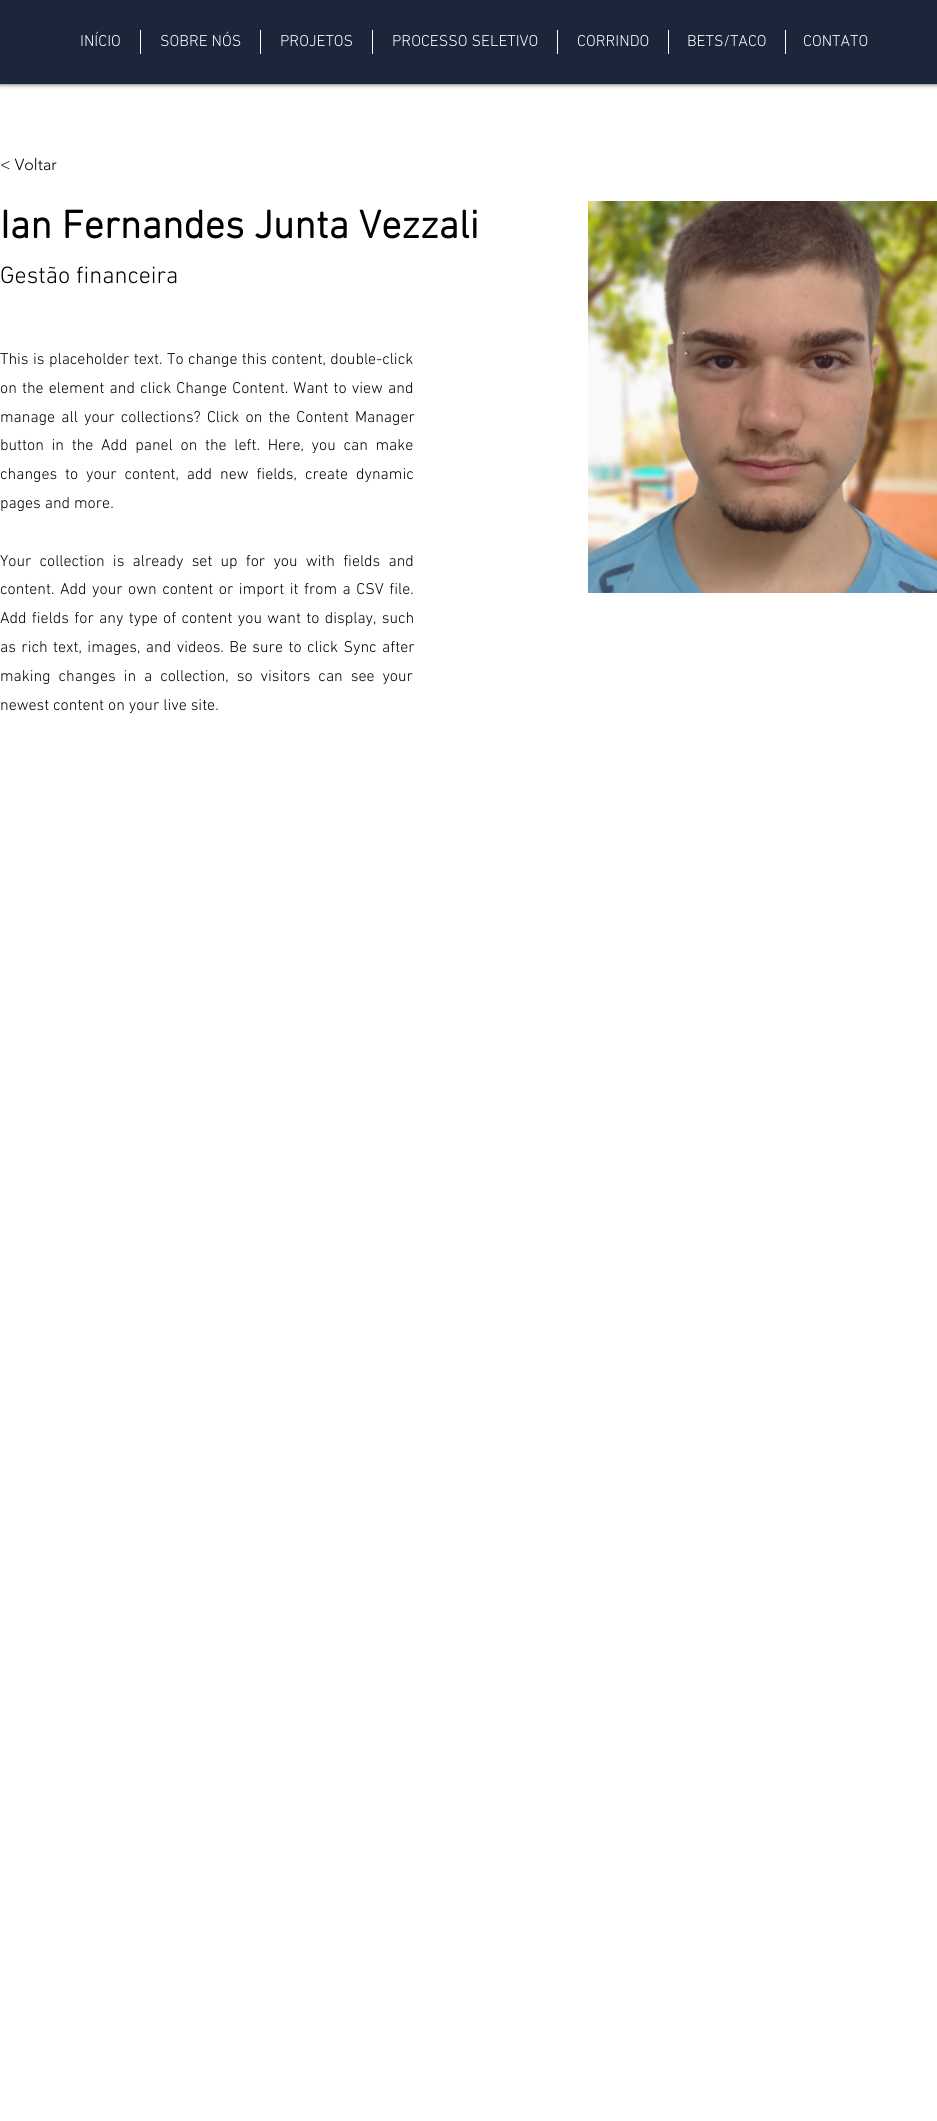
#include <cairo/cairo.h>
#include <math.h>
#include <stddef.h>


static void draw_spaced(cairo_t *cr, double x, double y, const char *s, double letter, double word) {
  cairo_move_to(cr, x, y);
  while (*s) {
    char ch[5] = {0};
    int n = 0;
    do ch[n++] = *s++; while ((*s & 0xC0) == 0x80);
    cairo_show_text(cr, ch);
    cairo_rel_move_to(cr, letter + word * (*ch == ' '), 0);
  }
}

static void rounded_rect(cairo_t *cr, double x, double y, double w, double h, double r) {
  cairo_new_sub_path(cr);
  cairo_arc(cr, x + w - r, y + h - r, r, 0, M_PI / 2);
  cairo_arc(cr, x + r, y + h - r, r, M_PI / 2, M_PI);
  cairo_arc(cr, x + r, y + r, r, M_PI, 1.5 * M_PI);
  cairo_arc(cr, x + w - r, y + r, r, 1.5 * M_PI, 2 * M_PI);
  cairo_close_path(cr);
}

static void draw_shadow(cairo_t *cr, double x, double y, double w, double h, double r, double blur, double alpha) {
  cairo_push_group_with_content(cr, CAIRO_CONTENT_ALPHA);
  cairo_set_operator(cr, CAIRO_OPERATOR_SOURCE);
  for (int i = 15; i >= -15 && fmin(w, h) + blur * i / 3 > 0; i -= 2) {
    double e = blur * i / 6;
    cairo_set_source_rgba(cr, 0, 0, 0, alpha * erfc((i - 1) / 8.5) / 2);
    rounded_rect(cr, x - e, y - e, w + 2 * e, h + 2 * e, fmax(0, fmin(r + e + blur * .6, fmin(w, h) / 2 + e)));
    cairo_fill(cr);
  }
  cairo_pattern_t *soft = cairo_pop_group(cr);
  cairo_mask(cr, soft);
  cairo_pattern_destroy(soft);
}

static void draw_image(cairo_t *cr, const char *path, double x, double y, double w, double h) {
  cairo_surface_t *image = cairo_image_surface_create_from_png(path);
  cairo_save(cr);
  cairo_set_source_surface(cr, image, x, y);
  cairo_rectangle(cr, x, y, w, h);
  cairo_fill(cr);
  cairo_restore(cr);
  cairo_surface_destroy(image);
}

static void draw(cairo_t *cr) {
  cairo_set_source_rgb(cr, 1, 1, 1);
  cairo_paint(cr);
  cairo_set_source_rgb(cr, 0, 0, 0);
  draw_shadow(cr, 0, 0, 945, 84, 0, 2.5, 0.7);
  cairo_set_source_rgb(cr, 27 / 255.0, 38 / 255.0, 59 / 255.0);
  cairo_rectangle(cr, 0, 0, 937, 84);
  cairo_fill(cr);
  cairo_set_source_rgb(cr, 254 / 255.0, 254 / 255.0, 254 / 255.0);
  cairo_rectangle(cr, 140, 30, 1, 24);
  cairo_fill(cr);
  cairo_rectangle(cr, 260, 30, 1, 24);
  cairo_fill(cr);
  cairo_rectangle(cr, 372, 30, 1, 24);
  cairo_fill(cr);
  cairo_rectangle(cr, 557, 30, 1, 24);
  cairo_fill(cr);
  cairo_rectangle(cr, 668, 30, 1, 24);
  cairo_fill(cr);
  cairo_rectangle(cr, 785, 30, 1, 24);
  cairo_fill(cr);
  draw_image(cr, "images/1.png", 588, 201, 349, 392);
  cairo_select_font_face(cr, "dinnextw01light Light", CAIRO_FONT_SLANT_NORMAL, CAIRO_FONT_WEIGHT_NORMAL);
  cairo_set_font_size(cr, 16);
  cairo_move_to(cr, 80, 46);
  cairo_show_text(cr, "INÍCIO");
  cairo_move_to(cr, 160, 46);
  cairo_show_text(cr, "SOBRE NÓS");
  cairo_move_to(cr, 280, 46);
  cairo_show_text(cr, "PROJETOS");
  cairo_move_to(cr, 392, 46);
  cairo_show_text(cr, "PROCESSO SELETIVO");
  cairo_move_to(cr, 577, 46);
  cairo_show_text(cr, "CORRINDO");
  cairo_move_to(cr, 687, 46);
  cairo_show_text(cr, "BETS/TACO");
  cairo_move_to(cr, 803, 46);
  cairo_show_text(cr, "CONTATO");
  cairo_select_font_face(cr, "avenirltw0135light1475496 Light", CAIRO_FONT_SLANT_NORMAL, CAIRO_FONT_WEIGHT_NORMAL);
  cairo_set_source_rgb(cr, 0, 0, 0);
  cairo_move_to(cr, 0, 170);
  cairo_show_text(cr, "< Voltar");
  cairo_select_font_face(cr, "dinnextw01light", CAIRO_FONT_SLANT_NORMAL, CAIRO_FONT_WEIGHT_BOLD);
  cairo_set_font_size(cr, 40);
  cairo_move_to(cr, 0, 238);
  cairo_show_text(cr, "Ian Fernandes Junta Vezzali");
  cairo_select_font_face(cr, "dinnextw01light Light", CAIRO_FONT_SLANT_NORMAL, CAIRO_FONT_WEIGHT_NORMAL);
  cairo_set_font_size(cr, 24);
  cairo_move_to(cr, 0, 283);
  cairo_show_text(cr, "Gestão financeira");
  cairo_set_font_size(cr, 16);
  draw_spaced(cr, 0, 364, "This is placeholder text. To change this content, double-click", 0, 0.5);
  draw_spaced(cr, 0, 393, "on the element and click Change Content. Want to view and", 0, 1.25);
  draw_spaced(cr, 0, 422, "manage all your collections? Click on the Content Manager", 0, 2.25);
  draw_spaced(cr, 0, 450, "button in the Add panel on the left. Here, you can make", 0, 3.75);
  draw_spaced(cr, 0, 479, "changes to your content, add new fields, create dynamic", 0, 4);
  cairo_move_to(cr, 0, 508);
  cairo_show_text(cr, "pages and more.");
  draw_spaced(cr, 0, 566, "Your collection is already set up for you with fields and", 0, 4.25);
  draw_spaced(cr, 0, 594, "content. Add your own content or import it from a CSV file.", 0, 1.6);
  draw_spaced(cr, 0, 623, "Add fields for any type of content you want to display, such", 0, 1.4);
  draw_spaced(cr, 0, 652, "as rich text, images, and videos. Be sure to click Sync after", 0, 1.5);
  draw_spaced(cr, 0, 681, "making changes in a collection, so visitors can see your", 0, 4);
  cairo_move_to(cr, 0, 710);
  cairo_show_text(cr, "newest content on your live site.");
}

int main(void) {
  cairo_surface_t *surface = cairo_image_surface_create(CAIRO_FORMAT_RGB24, 937, 2121);
  cairo_t *cr = cairo_create(surface);
  cairo_font_options_t *options = cairo_font_options_create();
  cairo_font_options_set_hint_metrics(options, CAIRO_HINT_METRICS_OFF);
  cairo_font_options_set_hint_style(options, CAIRO_HINT_STYLE_NONE);
  cairo_set_font_options(cr, options);
  cairo_set_miter_limit(cr, 4);
  draw(cr);
  cairo_surface_write_to_png(surface, "out.png");
  cairo_font_options_destroy(options);
  cairo_destroy(cr);
  cairo_surface_destroy(surface);
  return 0;
}
